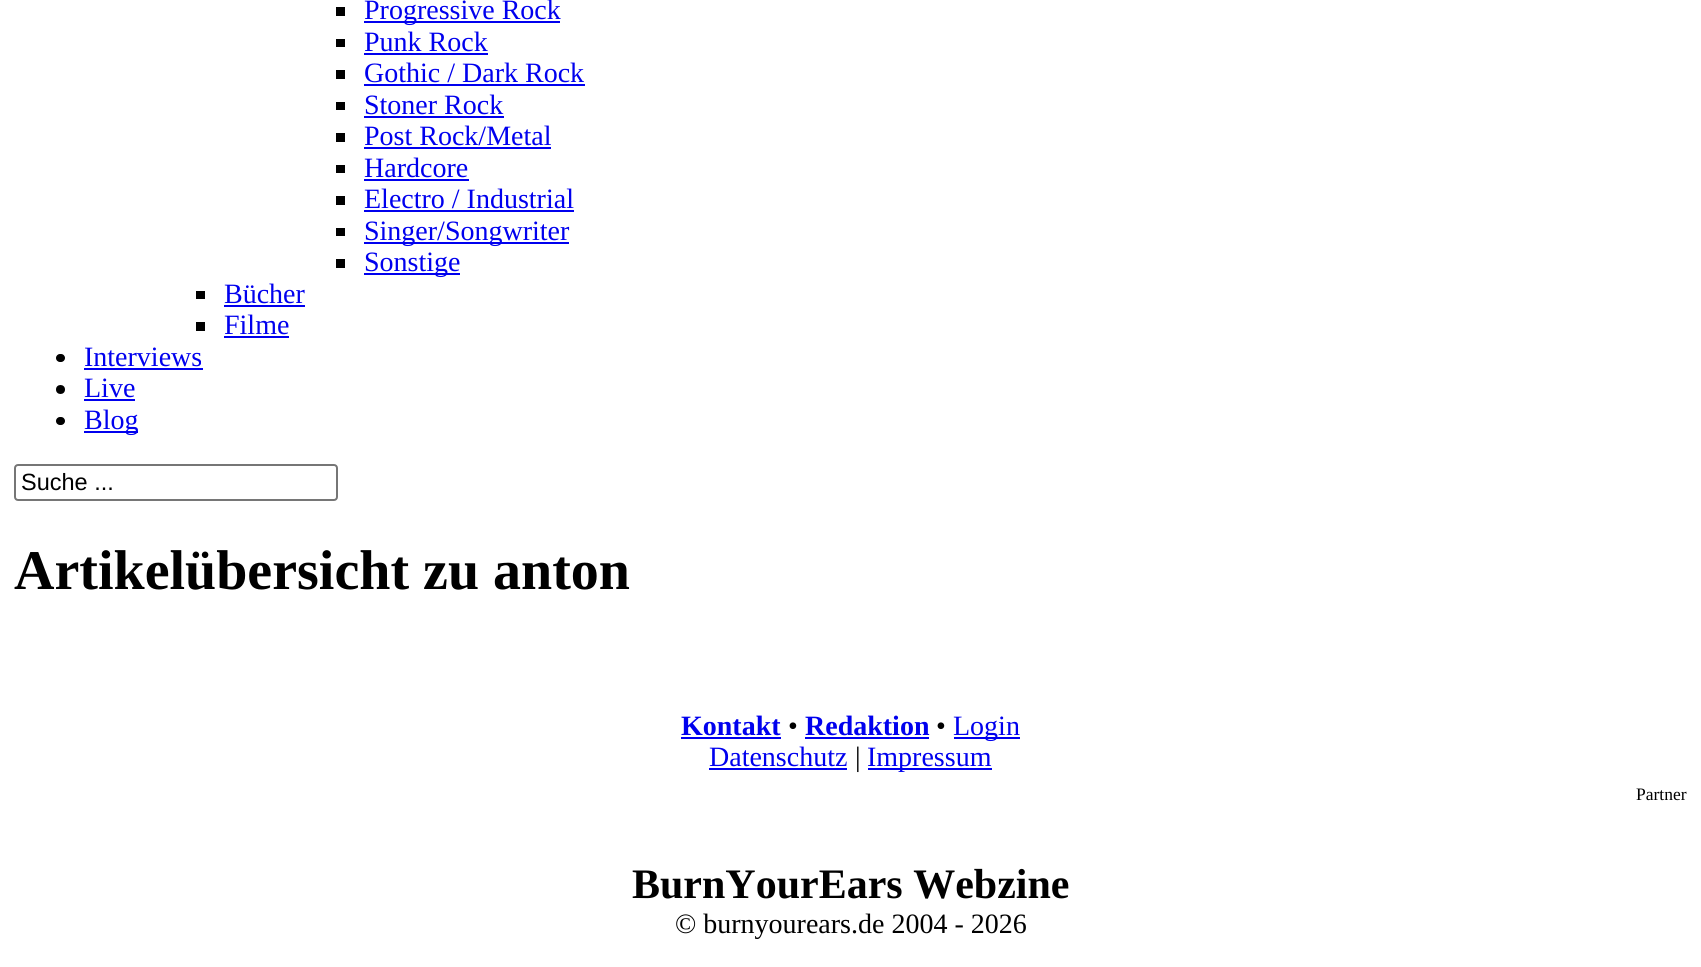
#include <cairo/cairo.h>
#include <math.h>
#include <stddef.h>


static void rounded_rect(cairo_t *cr, double x, double y, double w, double h, double r) {
  cairo_new_sub_path(cr);
  cairo_arc(cr, x + w - r, y + h - r, r, 0, M_PI / 2);
  cairo_arc(cr, x + r, y + h - r, r, M_PI / 2, M_PI);
  cairo_arc(cr, x + r, y + r, r, M_PI, 1.5 * M_PI);
  cairo_arc(cr, x + w - r, y + r, r, 1.5 * M_PI, 2 * M_PI);
  cairo_close_path(cr);
}

static void draw(cairo_t *cr) {
  cairo_set_source_rgb(cr, 1, 1, 1);
  cairo_paint(cr);
  cairo_set_source_rgb(cr, 0, 0, 0);
  cairo_rectangle(cr, 336, 7, 9, 9);
  cairo_fill(cr);
  cairo_set_source_rgb(cr, 0, 0, 238 / 255.0);
  cairo_rectangle(cr, 364, 21, 196, 2);
  cairo_fill(cr);
  cairo_set_source_rgb(cr, 0, 0, 0);
  cairo_rectangle(cr, 336, 39, 9, 8);
  cairo_fill(cr);
  cairo_set_source_rgb(cr, 0, 0, 238 / 255.0);
  cairo_rectangle(cr, 364, 53, 124, 2);
  cairo_fill(cr);
  cairo_set_source_rgb(cr, 0, 0, 0);
  cairo_rectangle(cr, 336, 70, 9, 9);
  cairo_fill(cr);
  cairo_set_source_rgb(cr, 0, 0, 238 / 255.0);
  cairo_rectangle(cr, 364, 84, 221, 2);
  cairo_fill(cr);
  cairo_set_source_rgb(cr, 0, 0, 0);
  cairo_rectangle(cr, 336, 102, 9, 8);
  cairo_fill(cr);
  cairo_set_source_rgb(cr, 0, 0, 238 / 255.0);
  cairo_rectangle(cr, 364, 116, 140, 2);
  cairo_fill(cr);
  cairo_set_source_rgb(cr, 0, 0, 0);
  cairo_rectangle(cr, 336, 133, 9, 9);
  cairo_fill(cr);
  cairo_set_source_rgb(cr, 0, 0, 238 / 255.0);
  cairo_rectangle(cr, 364, 147, 187, 2);
  cairo_fill(cr);
  cairo_set_source_rgb(cr, 0, 0, 0);
  cairo_rectangle(cr, 336, 165, 9, 8);
  cairo_fill(cr);
  cairo_set_source_rgb(cr, 0, 0, 238 / 255.0);
  cairo_rectangle(cr, 364, 179, 105, 2);
  cairo_fill(cr);
  cairo_set_source_rgb(cr, 0, 0, 0);
  cairo_rectangle(cr, 336, 196, 9, 9);
  cairo_fill(cr);
  cairo_set_source_rgb(cr, 0, 0, 238 / 255.0);
  cairo_rectangle(cr, 364, 210, 210, 2);
  cairo_fill(cr);
  cairo_set_source_rgb(cr, 0, 0, 0);
  cairo_rectangle(cr, 336, 228, 9, 8);
  cairo_fill(cr);
  cairo_set_source_rgb(cr, 0, 0, 238 / 255.0);
  cairo_rectangle(cr, 364, 242, 205, 2);
  cairo_fill(cr);
  cairo_set_source_rgb(cr, 0, 0, 0);
  cairo_rectangle(cr, 336, 259, 9, 9);
  cairo_fill(cr);
  cairo_set_source_rgb(cr, 0, 0, 238 / 255.0);
  cairo_rectangle(cr, 364, 273, 96, 2);
  cairo_fill(cr);
  cairo_set_source_rgb(cr, 0, 0, 0);
  cairo_rectangle(cr, 196, 291, 9, 8);
  cairo_fill(cr);
  cairo_set_source_rgb(cr, 0, 0, 238 / 255.0);
  cairo_rectangle(cr, 224, 305, 81, 2);
  cairo_fill(cr);
  cairo_set_source_rgb(cr, 0, 0, 0);
  cairo_rectangle(cr, 196, 322, 9, 9);
  cairo_fill(cr);
  cairo_set_source_rgb(cr, 0, 0, 238 / 255.0);
  cairo_rectangle(cr, 224, 336, 65, 2);
  cairo_fill(cr);
  cairo_set_source_rgb(cr, 0, 0, 0);
  rounded_rect(cr, 56, 354, 9, 8, 4);
  cairo_fill(cr);
  cairo_set_source_rgb(cr, 0, 0, 238 / 255.0);
  cairo_rectangle(cr, 84, 368, 119, 2);
  cairo_fill(cr);
  cairo_set_source_rgb(cr, 0, 0, 0);
  cairo_arc(cr, 60.5, 389.5, 4.5, 0, 2 * M_PI);
  cairo_fill(cr);
  cairo_set_source_rgb(cr, 0, 0, 238 / 255.0);
  cairo_rectangle(cr, 84, 399, 51, 2);
  cairo_fill(cr);
  cairo_set_source_rgb(cr, 0, 0, 0);
  rounded_rect(cr, 56, 417, 9, 8, 4);
  cairo_fill(cr);
  cairo_set_source_rgb(cr, 0, 0, 238 / 255.0);
  cairo_rectangle(cr, 84, 431, 54, 2);
  cairo_fill(cr);
  rounded_rect(cr, 15, 465, 322, 35, 3);
  cairo_set_source_rgb(cr, 118 / 255.0, 118 / 255.0, 118 / 255.0);
  cairo_stroke(cr);
  cairo_set_source_rgb(cr, 0, 0, 238 / 255.0);
  cairo_rectangle(cr, 681, 737, 100, 2);
  cairo_fill(cr);
  cairo_rectangle(cr, 805, 737, 124, 2);
  cairo_fill(cr);
  cairo_rectangle(cr, 954, 737, 66, 2);
  cairo_fill(cr);
  cairo_rectangle(cr, 709, 768, 138, 2);
  cairo_fill(cr);
  cairo_rectangle(cr, 868, 768, 124, 2);
  cairo_fill(cr);
  cairo_select_font_face(cr, "Liberation Serif", CAIRO_FONT_SLANT_NORMAL, CAIRO_FONT_WEIGHT_NORMAL);
  cairo_set_font_size(cr, 28);
  cairo_move_to(cr, 364, 19);
  cairo_show_text(cr, "Progressive Rock");
  cairo_move_to(cr, 364, 51);
  cairo_show_text(cr, "Punk Rock");
  cairo_move_to(cr, 364, 82);
  cairo_show_text(cr, "Gothic / Dark Rock");
  cairo_move_to(cr, 364, 114);
  cairo_show_text(cr, "Stoner Rock");
  cairo_move_to(cr, 364, 145);
  cairo_show_text(cr, "Post Rock/Metal");
  cairo_move_to(cr, 364, 177);
  cairo_show_text(cr, "Hardcore");
  cairo_move_to(cr, 364, 208);
  cairo_show_text(cr, "Electro / Industrial");
  cairo_move_to(cr, 364, 240);
  cairo_show_text(cr, "Singer/Songwriter");
  cairo_move_to(cr, 364, 271);
  cairo_show_text(cr, "Sonstige");
  cairo_move_to(cr, 224, 303);
  cairo_show_text(cr, "Bücher");
  cairo_move_to(cr, 224, 334);
  cairo_show_text(cr, "Filme");
  cairo_move_to(cr, 84, 366);
  cairo_show_text(cr, "Interviews");
  cairo_move_to(cr, 84, 397);
  cairo_show_text(cr, "Live");
  cairo_move_to(cr, 84, 429);
  cairo_show_text(cr, "Blog");
  cairo_select_font_face(cr, "Liberation Sans", CAIRO_FONT_SLANT_NORMAL, CAIRO_FONT_WEIGHT_NORMAL);
  cairo_set_font_size(cr, 23.5);
  cairo_set_source_rgb(cr, 0, 0, 0);
  cairo_move_to(cr, 21, 490);
  cairo_show_text(cr, "Suche ...");
  cairo_select_font_face(cr, "Liberation Serif", CAIRO_FONT_SLANT_NORMAL, CAIRO_FONT_WEIGHT_BOLD);
  cairo_set_font_size(cr, 56);
  cairo_move_to(cr, 14, 589);
  cairo_show_text(cr, "Artikelübersicht zu anton");
  cairo_set_font_size(cr, 28);
  cairo_set_source_rgb(cr, 0, 0, 238 / 255.0);
  cairo_move_to(cr, 681, 735);
  cairo_show_text(cr, "Kontakt");
  cairo_select_font_face(cr, "Liberation Serif", CAIRO_FONT_SLANT_NORMAL, CAIRO_FONT_WEIGHT_NORMAL);
  cairo_set_source_rgb(cr, 0, 0, 0);
  cairo_move_to(cr, 788, 735);
  cairo_show_text(cr, "•");
  cairo_select_font_face(cr, "Liberation Serif", CAIRO_FONT_SLANT_NORMAL, CAIRO_FONT_WEIGHT_BOLD);
  cairo_set_source_rgb(cr, 0, 0, 238 / 255.0);
  cairo_move_to(cr, 805, 735);
  cairo_show_text(cr, "Redaktion");
  cairo_select_font_face(cr, "Liberation Serif", CAIRO_FONT_SLANT_NORMAL, CAIRO_FONT_WEIGHT_NORMAL);
  cairo_set_source_rgb(cr, 0, 0, 0);
  cairo_move_to(cr, 936, 735);
  cairo_show_text(cr, "•");
  cairo_set_source_rgb(cr, 0, 0, 238 / 255.0);
  cairo_move_to(cr, 953, 735);
  cairo_show_text(cr, "Login");
  cairo_move_to(cr, 709, 766);
  cairo_show_text(cr, "Datenschutz");
  cairo_set_source_rgb(cr, 0, 0, 0);
  cairo_move_to(cr, 855, 766);
  cairo_show_text(cr, "|");
  cairo_set_source_rgb(cr, 0, 0, 238 / 255.0);
  cairo_move_to(cr, 867, 766);
  cairo_show_text(cr, "Impressum");
  cairo_set_font_size(cr, 17.5);
  cairo_set_source_rgb(cr, 0, 0, 0);
  cairo_move_to(cr, 1636, 800);
  cairo_show_text(cr, "Partner");
  cairo_select_font_face(cr, "Liberation Serif", CAIRO_FONT_SLANT_NORMAL, CAIRO_FONT_WEIGHT_BOLD);
  cairo_set_font_size(cr, 42);
  cairo_move_to(cr, 632, 898);
  cairo_show_text(cr, "BurnYourEars Webzine");
  cairo_select_font_face(cr, "Liberation Serif", CAIRO_FONT_SLANT_NORMAL, CAIRO_FONT_WEIGHT_NORMAL);
  cairo_set_font_size(cr, 28);
  cairo_move_to(cr, 675, 933);
  cairo_show_text(cr, "© burnyourears.de 2004 - 2026");
}

int main(void) {
  cairo_surface_t *surface = cairo_image_surface_create(CAIRO_FORMAT_RGB24, 1701, 967);
  cairo_t *cr = cairo_create(surface);
  cairo_font_options_t *options = cairo_font_options_create();
  cairo_font_options_set_hint_metrics(options, CAIRO_HINT_METRICS_OFF);
  cairo_font_options_set_hint_style(options, CAIRO_HINT_STYLE_NONE);
  cairo_set_font_options(cr, options);
  cairo_set_miter_limit(cr, 4);
  draw(cr);
  cairo_surface_write_to_png(surface, "out.png");
  cairo_font_options_destroy(options);
  cairo_destroy(cr);
  cairo_surface_destroy(surface);
  return 0;
}
